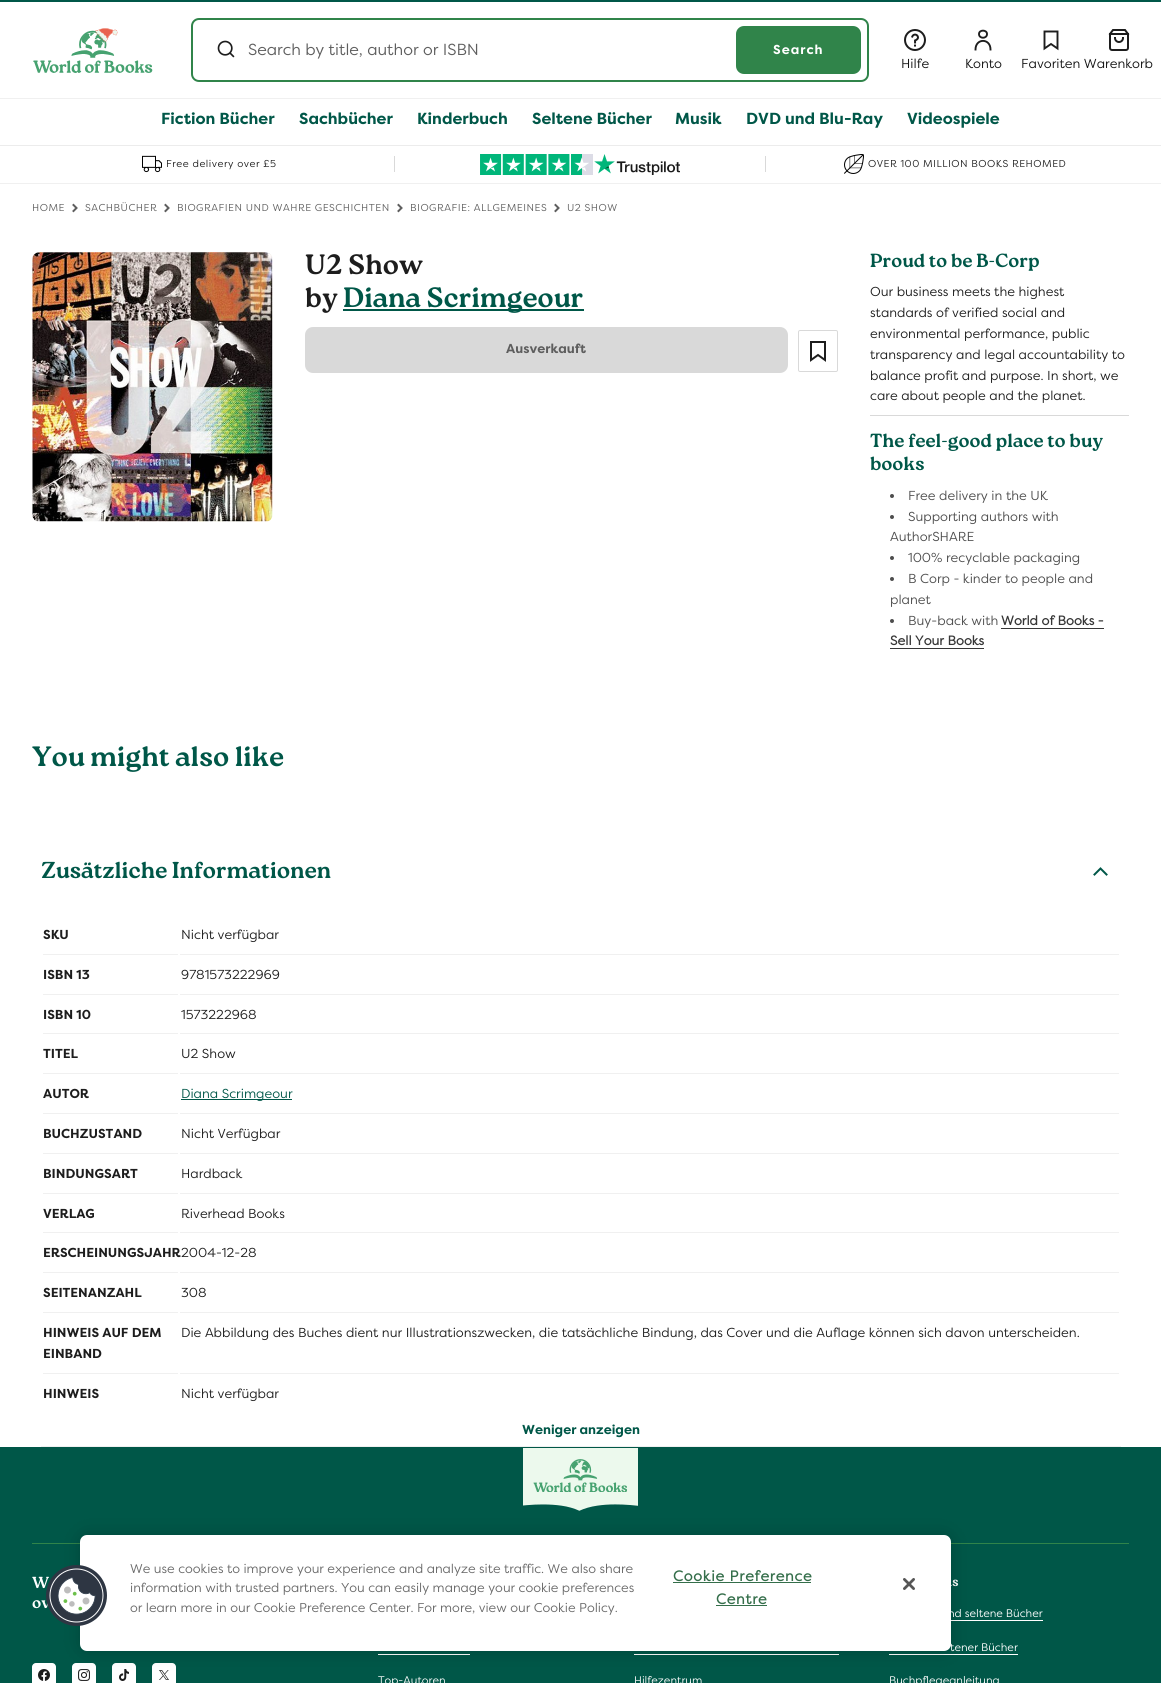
#include <cairo/cairo.h>
#include <math.h>
#include <stddef.h>


static void draw_spaced(cairo_t *cr, double x, double y, const char *s, double letter, double word) {
  cairo_move_to(cr, x, y);
  while (*s) {
    char ch[5] = {0};
    int n = 0;
    do ch[n++] = *s++; while ((*s & 0xC0) == 0x80);
    cairo_show_text(cr, ch);
    cairo_rel_move_to(cr, letter + word * (*ch == ' '), 0);
  }
}

static void rounded_rect(cairo_t *cr, double x, double y, double w, double h, double r) {
  cairo_new_sub_path(cr);
  cairo_arc(cr, x + w - r, y + h - r, r, 0, M_PI / 2);
  cairo_arc(cr, x + r, y + h - r, r, M_PI / 2, M_PI);
  cairo_arc(cr, x + r, y + r, r, M_PI, 1.5 * M_PI);
  cairo_arc(cr, x + w - r, y + r, r, 1.5 * M_PI, 2 * M_PI);
  cairo_close_path(cr);
}

static void draw_shadow(cairo_t *cr, double x, double y, double w, double h, double r, double blur, double alpha) {
  cairo_push_group_with_content(cr, CAIRO_CONTENT_ALPHA);
  cairo_set_operator(cr, CAIRO_OPERATOR_SOURCE);
  for (int i = 15; i >= -15 && fmin(w, h) + blur * i / 3 > 0; i -= 2) {
    double e = blur * i / 6;
    cairo_set_source_rgba(cr, 0, 0, 0, alpha * erfc((i - 1) / 8.5) / 2);
    rounded_rect(cr, x - e, y - e, w + 2 * e, h + 2 * e, fmax(0, fmin(r + e + blur * .6, fmin(w, h) / 2 + e)));
    cairo_fill(cr);
  }
  cairo_pattern_t *soft = cairo_pop_group(cr);
  cairo_mask(cr, soft);
  cairo_pattern_destroy(soft);
}

static void draw_image(cairo_t *cr, const char *path, double x, double y, double w, double h) {
  cairo_surface_t *image = cairo_image_surface_create_from_png(path);
  cairo_save(cr);
  cairo_set_source_surface(cr, image, x, y);
  cairo_rectangle(cr, x, y, w, h);
  cairo_fill(cr);
  cairo_restore(cr);
  cairo_surface_destroy(image);
}

static void draw(cairo_t *cr) {
  cairo_set_source_rgb(cr, 1, 1, 1);
  cairo_paint(cr);
  cairo_set_source_rgb(cr, 236 / 255.0, 236 / 255.0, 236 / 255.0);
  cairo_rectangle(cr, 0, 145, 1161, 1);
  cairo_fill(cr);
  cairo_set_source_rgb(cr, 0, 87 / 255.0, 72 / 255.0);
  cairo_rectangle(cr, 0, 0, 1161, 2);
  cairo_fill(cr);
  draw_image(cr, "images/1.png", 33, 28, 120, 45);
  rounded_rect(cr, 192, 19, 676, 62, 7);
  cairo_set_source_rgb(cr, 48 / 255.0, 132 / 255.0, 74 / 255.0);
  cairo_stroke(cr);
  draw_image(cr, "images/2.png", 217, 40, 18, 18);
  rounded_rect(cr, 736, 26, 125, 48, 8);
  cairo_fill(cr);
  draw_image(cr, "images/3.png", 1108, 29, 22, 22);
  draw_image(cr, "images/4.png", 904, 29, 22, 22);
  cairo_new_path(cr);
  cairo_move_to(cr, 990.5, 49.5);
  cairo_curve_to(cr, 990.5, 38, 975.5, 38, 975.5, 49.5);
  cairo_move_to(cr, 987, 34);
  cairo_curve_to(cr, 987, 39, 979, 39, 979, 34);
  cairo_curve_to(cr, 979, 29.5, 987, 29.5, 987, 34);
  cairo_close_path(cr);
  cairo_set_source_rgb(cr, 29 / 255.0, 29 / 255.0, 29 / 255.0);
  cairo_set_line_width(cr, 1.9);
  cairo_set_line_cap(cr, CAIRO_LINE_CAP_SQUARE);
  cairo_stroke(cr);
  cairo_new_path(cr);
  cairo_move_to(cr, 1057.5, 48.5);
  cairo_line_to(cr, 1051, 44);
  cairo_line_to(cr, 1044.5, 48.5);
  cairo_line_to(cr, 1044.5, 31.5);
  cairo_line_to(cr, 1057.5, 31.5);
  cairo_close_path(cr);
  cairo_set_line_cap(cr, CAIRO_LINE_CAP_ROUND);
  cairo_stroke(cr);
  cairo_set_source_rgb(cr, 240 / 255.0, 240 / 255.0, 240 / 255.0);
  cairo_rectangle(cr, 0, 98, 1161, 1);
  cairo_fill(cr);
  cairo_rectangle(cr, 0, 183, 1161, 1);
  cairo_fill(cr);
  draw_image(cr, "images/5.png", 142, 155, 20, 18);
  cairo_set_source_rgb(cr, 217 / 255.0, 217 / 255.0, 217 / 255.0);
  cairo_rectangle(cr, 394, 156, 1, 16);
  cairo_fill(cr);
  draw_image(cr, "images/6.png", 480, 154, 200, 21);
  cairo_rectangle(cr, 765, 156, 1, 16);
  cairo_fill(cr);
  draw_image(cr, "images/7.png", 844, 154, 20, 20);
  cairo_new_path(cr);
  cairo_move_to(cr, 73.5, 211);
  cairo_line_to(cr, 76.5, 208);
  cairo_line_to(cr, 73.5, 205);
  cairo_set_source_rgb(cr, 94 / 255.0, 94 / 255.0, 94 / 255.0);
  cairo_set_line_width(cr, 2);
  cairo_set_line_cap(cr, CAIRO_LINE_CAP_SQUARE);
  cairo_stroke(cr);
  cairo_new_path(cr);
  cairo_move_to(cr, 165.5, 211);
  cairo_line_to(cr, 168.5, 208);
  cairo_line_to(cr, 165.5, 205);
  cairo_stroke(cr);
  cairo_new_path(cr);
  cairo_move_to(cr, 398.5, 211);
  cairo_line_to(cr, 401.5, 208);
  cairo_line_to(cr, 398.5, 205);
  cairo_stroke(cr);
  cairo_new_path(cr);
  cairo_move_to(cr, 555.5, 211);
  cairo_line_to(cr, 558.5, 208);
  cairo_line_to(cr, 555.5, 205);
  cairo_stroke(cr);
  draw_image(cr, "images/8.png", 32, 252, 241, 270);
  draw_image(cr, "images/9.png", 305, 254, 118, 21);
  draw_image(cr, "images/10.png", 305, 287, 33, 26);
  cairo_set_source_rgb(cr, 0, 87 / 255.0, 72 / 255.0);
  cairo_rectangle(cr, 343, 309, 241, 2);
  cairo_fill(cr);
  draw_image(cr, "images/11.png", 344, 287, 239, 26);
  cairo_set_source_rgb(cr, 217 / 255.0, 217 / 255.0, 217 / 255.0);
  rounded_rect(cr, 305, 327, 483, 46, 8);
  cairo_fill(cr);
  rounded_rect(cr, 798.5, 330.5, 39, 41, 1.5);
  cairo_set_line_width(cr, 1);
  cairo_set_line_cap(cr, CAIRO_LINE_CAP_BUTT);
  cairo_stroke(cr);
  cairo_new_path(cr);
  cairo_move_to(cr, 825, 360);
  cairo_line_to(cr, 818, 355);
  cairo_line_to(cr, 811, 360);
  cairo_line_to(cr, 811, 342);
  cairo_line_to(cr, 825, 342);
  cairo_close_path(cr);
  cairo_set_source_rgb(cr, 29 / 255.0, 29 / 255.0, 29 / 255.0);
  cairo_set_line_width(cr, 2);
  cairo_set_line_cap(cr, CAIRO_LINE_CAP_ROUND);
  cairo_stroke(cr);
  cairo_set_source_rgb(cr, 217 / 255.0, 217 / 255.0, 217 / 255.0);
  cairo_rectangle(cr, 870, 415, 259, 1);
  cairo_fill(cr);
  draw_image(cr, "images/12.png", 870, 253, 169, 18);
  draw_image(cr, "images/13.png", 870, 433, 233, 18);
  draw_image(cr, "images/14.png", 870, 456, 54, 15);
  cairo_set_source_rgb(cr, 77 / 255.0, 77 / 255.0, 77 / 255.0);
  cairo_arc(cr, 892, 496, 2, 0, 2 * M_PI);
  cairo_fill(cr);
  cairo_arc(cr, 892, 517, 2, 0, 2 * M_PI);
  cairo_fill(cr);
  cairo_arc(cr, 892, 558, 2, 0, 2 * M_PI);
  cairo_fill(cr);
  cairo_arc(cr, 892, 579, 2, 0, 2 * M_PI);
  cairo_fill(cr);
  cairo_arc(cr, 892, 621, 2, 0, 2 * M_PI);
  cairo_fill(cr);
  cairo_set_source_rgb(cr, 54 / 255.0, 54 / 255.0, 54 / 255.0);
  cairo_rectangle(cr, 1001, 628, 103, 1);
  cairo_fill(cr);
  cairo_rectangle(cr, 890, 648, 94, 1);
  cairo_fill(cr);
  draw_image(cr, "images/15.png", 32, 746, 252, 26);
  draw_image(cr, "images/16.png", 41, 861, 290, 18);
  cairo_new_path(cr);
  cairo_move_to(cr, 1106.5, 874.5);
  cairo_line_to(cr, 1100.5, 868.5);
  cairo_line_to(cr, 1094.5, 874.5);
  cairo_set_source_rgb(cr, 0, 87 / 255.0, 72 / 255.0);
  cairo_set_line_cap(cr, CAIRO_LINE_CAP_SQUARE);
  cairo_stroke(cr);
  cairo_set_source_rgb(cr, 240 / 255.0, 240 / 255.0, 240 / 255.0);
  cairo_rectangle(cr, 41, 1446, 1080, 1);
  cairo_fill(cr);
  cairo_rectangle(cr, 43, 954, 135, 1);
  cairo_fill(cr);
  cairo_rectangle(cr, 180, 954, 939, 1);
  cairo_fill(cr);
  cairo_rectangle(cr, 43, 994, 135, 1);
  cairo_fill(cr);
  cairo_rectangle(cr, 180, 994, 939, 1);
  cairo_fill(cr);
  cairo_rectangle(cr, 43, 1033, 135, 1);
  cairo_fill(cr);
  cairo_rectangle(cr, 180, 1033, 939, 1);
  cairo_fill(cr);
  cairo_rectangle(cr, 43, 1073, 135, 1);
  cairo_fill(cr);
  cairo_rectangle(cr, 180, 1073, 939, 1);
  cairo_fill(cr);
  cairo_rectangle(cr, 43, 1113, 135, 1);
  cairo_fill(cr);
  cairo_rectangle(cr, 180, 1113, 939, 1);
  cairo_fill(cr);
  cairo_set_source_rgb(cr, 0, 87 / 255.0, 72 / 255.0);
  cairo_rectangle(cr, 181, 1099, 111, 1);
  cairo_fill(cr);
  cairo_set_source_rgb(cr, 240 / 255.0, 240 / 255.0, 240 / 255.0);
  cairo_rectangle(cr, 43, 1153, 135, 1);
  cairo_fill(cr);
  cairo_rectangle(cr, 180, 1153, 939, 1);
  cairo_fill(cr);
  cairo_rectangle(cr, 43, 1193, 135, 1);
  cairo_fill(cr);
  cairo_rectangle(cr, 180, 1193, 939, 1);
  cairo_fill(cr);
  cairo_rectangle(cr, 43, 1232, 135, 1);
  cairo_fill(cr);
  cairo_rectangle(cr, 180, 1232, 939, 1);
  cairo_fill(cr);
  cairo_rectangle(cr, 43, 1272, 135, 1);
  cairo_fill(cr);
  cairo_rectangle(cr, 180, 1272, 939, 1);
  cairo_fill(cr);
  cairo_rectangle(cr, 43, 1312, 135, 1);
  cairo_fill(cr);
  cairo_rectangle(cr, 180, 1312, 939, 1);
  cairo_fill(cr);
  cairo_rectangle(cr, 43, 1373, 135, 1);
  cairo_fill(cr);
  cairo_rectangle(cr, 180, 1373, 939, 1);
  cairo_fill(cr);
  cairo_set_source_rgb(cr, 0, 87 / 255.0, 72 / 255.0);
  cairo_rectangle(cr, 0, 1447, 1161, 236);
  cairo_fill(cr);
  cairo_set_source_rgb(cr, 48 / 255.0, 132 / 255.0, 74 / 255.0);
  cairo_rectangle(cr, 32, 1543, 1097, 1);
  cairo_fill(cr);
  draw_image(cr, "images/19.png", 523, 1448, 115, 63);
  cairo_set_source_rgb(cr, 1, 1, 1);
  rounded_rect(cr, 32, 1663, 24, 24, 4);
  cairo_fill(cr);
  rounded_rect(cr, 72, 1663, 24, 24, 4);
  cairo_fill(cr);
  draw_image(cr, "images/23.png", 78, 1669, 12, 12);
  rounded_rect(cr, 112, 1663, 24, 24, 4);
  cairo_fill(cr);
  draw_image(cr, "images/24.png", 119, 1669, 10, 12);
  rounded_rect(cr, 152, 1663, 24, 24, 4);
  cairo_fill(cr);
  draw_image(cr, "images/25.png", 159, 1670, 10, 10);
  cairo_rectangle(cr, 378, 1654, 92, 1);
  cairo_fill(cr);
  cairo_rectangle(cr, 634, 1654, 205, 1);
  cairo_fill(cr);
  draw_image(cr, "images/26.png", 951, 1579, 8, 8);
  cairo_rectangle(cr, 951, 1620, 92, 1);
  cairo_fill(cr);
  cairo_rectangle(cr, 889, 1654, 129, 1);
  cairo_fill(cr);
  cairo_set_source_rgb(cr, 0, 0, 0);
  draw_shadow(cr, 80, 1535, 871, 116, 7, 9, 0.2);
  cairo_set_source_rgb(cr, 1, 1, 1);
  rounded_rect(cr, 80, 1535, 871, 116, 7);
  cairo_fill(cr);
  draw_image(cr, "images/20.png", 32, 1576, 18, 13);
  draw_image(cr, "images/21.png", 32, 1600, 16, 9);
  draw_image(cr, "images/17.png", 46, 1565, 61, 61);
  cairo_set_source_rgb(cr, 52 / 255.0, 110 / 255.0, 74 / 255.0);
  cairo_rectangle(cr, 673, 1582, 138, 1);
  cairo_fill(cr);
  cairo_rectangle(cr, 716, 1605, 51, 1);
  cairo_fill(cr);
  draw_image(cr, "images/18.png", 903, 1578, 12, 12);
  draw_image(cr, "images/22.png", 38, 1669, 12, 12);
  cairo_select_font_face(cr, "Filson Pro", CAIRO_FONT_SLANT_NORMAL, CAIRO_FONT_WEIGHT_NORMAL);
  cairo_set_font_size(cr, 16);
  cairo_set_source_rgb(cr, 94 / 255.0, 94 / 255.0, 94 / 255.0);
  cairo_move_to(cr, 248, 55);
  cairo_show_text(cr, "Search by title, author or ISBN");
  cairo_select_font_face(cr, "Filson Pro", CAIRO_FONT_SLANT_NORMAL, CAIRO_FONT_WEIGHT_BOLD);
  cairo_set_font_size(cr, 13);
  cairo_set_source_rgb(cr, 1, 1, 1);
  draw_spaced(cr, 773, 54, "Search", 1, 0);
  cairo_select_font_face(cr, "Filson Pro", CAIRO_FONT_SLANT_NORMAL, CAIRO_FONT_WEIGHT_NORMAL);
  cairo_set_source_rgb(cr, 18 / 255.0, 18 / 255.0, 18 / 255.0);
  cairo_move_to(cr, 901, 68);
  cairo_show_text(cr, "Hilfe");
  cairo_move_to(cr, 965, 68);
  cairo_show_text(cr, "Konto");
  cairo_move_to(cr, 1021, 68);
  cairo_show_text(cr, "Favoriten Warenkorb");
  cairo_select_font_face(cr, "Filson Pro", CAIRO_FONT_SLANT_NORMAL, CAIRO_FONT_WEIGHT_BOLD);
  cairo_set_font_size(cr, 16);
  cairo_set_source_rgb(cr, 0, 87 / 255.0, 72 / 255.0);
  cairo_move_to(cr, 161, 124);
  cairo_show_text(cr, "Fiction Bücher");
  cairo_move_to(cr, 299, 124);
  cairo_show_text(cr, "Sachbücher");
  cairo_move_to(cr, 417, 124);
  cairo_show_text(cr, "Kinderbuch");
  cairo_move_to(cr, 532, 124);
  cairo_show_text(cr, "Seltene Bücher");
  cairo_move_to(cr, 675, 124);
  cairo_show_text(cr, "Musik");
  cairo_move_to(cr, 746, 124);
  cairo_show_text(cr, "DVD und Blu-Ray");
  cairo_move_to(cr, 907, 124);
  cairo_show_text(cr, "Videospiele");
  cairo_select_font_face(cr, "Filson Pro", CAIRO_FONT_SLANT_NORMAL, CAIRO_FONT_WEIGHT_NORMAL);
  cairo_set_font_size(cr, 10);
  cairo_set_source_rgb(cr, 29 / 255.0, 29 / 255.0, 29 / 255.0);
  draw_spaced(cr, 166, 167, "Free delivery over £5", 0.5, 0);
  draw_spaced(cr, 868, 167, "OVER 100 MILLION BOOKS REHOMED", 0.5, 0);
  cairo_set_source_rgb(cr, 94 / 255.0, 94 / 255.0, 94 / 255.0);
  draw_spaced(cr, 32, 211, "HOME", 0.5, 0);
  draw_spaced(cr, 85, 211, "SACHBÜCHER", 0.5, 0);
  draw_spaced(cr, 177, 211, "BIOGRAFIEN UND WAHRE GESCHICHTEN", 0.5, 0);
  draw_spaced(cr, 410, 211, "BIOGRAFIE: ALLGEMEINES", 0.5, 0);
  draw_spaced(cr, 567, 211, "U2 SHOW", 0.5, 0);
  cairo_select_font_face(cr, "Filson Pro", CAIRO_FONT_SLANT_NORMAL, CAIRO_FONT_WEIGHT_BOLD);
  cairo_set_font_size(cr, 13);
  cairo_move_to(cr, 506, 353);
  cairo_show_text(cr, "Ausverkauft");
  cairo_select_font_face(cr, "Filson Pro", CAIRO_FONT_SLANT_NORMAL, CAIRO_FONT_WEIGHT_NORMAL);
  cairo_set_source_rgb(cr, 29 / 255.0, 29 / 255.0, 29 / 255.0);
  cairo_move_to(cr, 870, 296);
  cairo_show_text(cr, "Our business meets the highest");
  cairo_move_to(cr, 870, 317);
  cairo_show_text(cr, "standards of verified social and");
  cairo_move_to(cr, 870, 338);
  cairo_show_text(cr, "environmental performance, public");
  cairo_move_to(cr, 870, 359);
  cairo_show_text(cr, "transparency and legal accountability to");
  cairo_move_to(cr, 870, 380);
  cairo_show_text(cr, "balance profit and purpose. In short, we");
  cairo_move_to(cr, 870, 400);
  cairo_show_text(cr, "care about people and the planet.");
  cairo_set_source_rgb(cr, 77 / 255.0, 77 / 255.0, 77 / 255.0);
  cairo_move_to(cr, 908, 500);
  cairo_show_text(cr, "Free delivery in the UK");
  cairo_move_to(cr, 908, 521);
  cairo_show_text(cr, "Supporting authors with");
  cairo_move_to(cr, 890, 541);
  cairo_show_text(cr, "AuthorSHARE");
  cairo_move_to(cr, 908, 562);
  cairo_show_text(cr, "100% recyclable packaging");
  cairo_move_to(cr, 908, 583);
  cairo_show_text(cr, "B Corp - kinder to people and");
  cairo_move_to(cr, 890, 604);
  cairo_show_text(cr, "planet");
  cairo_move_to(cr, 908, 625);
  cairo_show_text(cr, "Buy-back with");
  cairo_select_font_face(cr, "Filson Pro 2", CAIRO_FONT_SLANT_NORMAL, CAIRO_FONT_WEIGHT_BOLD);
  cairo_set_source_rgb(cr, 54 / 255.0, 54 / 255.0, 54 / 255.0);
  cairo_move_to(cr, 1001, 625);
  cairo_show_text(cr, "World of Books -");
  cairo_move_to(cr, 890, 645);
  cairo_show_text(cr, "Sell Your Books");
  cairo_select_font_face(cr, "Filson Pro", CAIRO_FONT_SLANT_NORMAL, CAIRO_FONT_WEIGHT_BOLD);
  cairo_set_source_rgb(cr, 29 / 255.0, 29 / 255.0, 29 / 255.0);
  cairo_move_to(cr, 43, 939);
  cairo_show_text(cr, "SKU");
  cairo_select_font_face(cr, "Filson Pro", CAIRO_FONT_SLANT_NORMAL, CAIRO_FONT_WEIGHT_NORMAL);
  cairo_move_to(cr, 181, 939);
  cairo_show_text(cr, "Nicht verfügbar");
  cairo_select_font_face(cr, "Filson Pro", CAIRO_FONT_SLANT_NORMAL, CAIRO_FONT_WEIGHT_BOLD);
  cairo_move_to(cr, 43, 979);
  cairo_show_text(cr, "ISBN 13");
  cairo_select_font_face(cr, "Filson Pro", CAIRO_FONT_SLANT_NORMAL, CAIRO_FONT_WEIGHT_NORMAL);
  cairo_move_to(cr, 181, 979);
  cairo_show_text(cr, "9781573222969");
  cairo_select_font_face(cr, "Filson Pro", CAIRO_FONT_SLANT_NORMAL, CAIRO_FONT_WEIGHT_BOLD);
  cairo_move_to(cr, 43, 1019);
  cairo_show_text(cr, "ISBN 10");
  cairo_select_font_face(cr, "Filson Pro", CAIRO_FONT_SLANT_NORMAL, CAIRO_FONT_WEIGHT_NORMAL);
  cairo_move_to(cr, 181, 1019);
  cairo_show_text(cr, "1573222968");
  cairo_select_font_face(cr, "Filson Pro", CAIRO_FONT_SLANT_NORMAL, CAIRO_FONT_WEIGHT_BOLD);
  cairo_move_to(cr, 43, 1058);
  cairo_show_text(cr, "TITEL");
  cairo_select_font_face(cr, "Filson Pro", CAIRO_FONT_SLANT_NORMAL, CAIRO_FONT_WEIGHT_NORMAL);
  cairo_move_to(cr, 181, 1058);
  cairo_show_text(cr, "U2 Show");
  cairo_select_font_face(cr, "Filson Pro", CAIRO_FONT_SLANT_NORMAL, CAIRO_FONT_WEIGHT_BOLD);
  cairo_move_to(cr, 43, 1098);
  cairo_show_text(cr, "AUTOR");
  cairo_select_font_face(cr, "Filson Pro", CAIRO_FONT_SLANT_NORMAL, CAIRO_FONT_WEIGHT_NORMAL);
  cairo_set_source_rgb(cr, 0, 87 / 255.0, 72 / 255.0);
  cairo_move_to(cr, 181, 1098);
  cairo_show_text(cr, "Diana Scrimgeour");
  cairo_select_font_face(cr, "Filson Pro", CAIRO_FONT_SLANT_NORMAL, CAIRO_FONT_WEIGHT_BOLD);
  cairo_set_source_rgb(cr, 29 / 255.0, 29 / 255.0, 29 / 255.0);
  cairo_move_to(cr, 43, 1138);
  cairo_show_text(cr, "BUCHZUSTAND");
  cairo_select_font_face(cr, "Filson Pro", CAIRO_FONT_SLANT_NORMAL, CAIRO_FONT_WEIGHT_NORMAL);
  cairo_move_to(cr, 181, 1138);
  cairo_show_text(cr, "Nicht Verfügbar");
  cairo_select_font_face(cr, "Filson Pro", CAIRO_FONT_SLANT_NORMAL, CAIRO_FONT_WEIGHT_BOLD);
  cairo_move_to(cr, 43, 1178);
  cairo_show_text(cr, "BINDUNGSART");
  cairo_select_font_face(cr, "Filson Pro", CAIRO_FONT_SLANT_NORMAL, CAIRO_FONT_WEIGHT_NORMAL);
  cairo_move_to(cr, 181, 1178);
  cairo_show_text(cr, "Hardback");
  cairo_select_font_face(cr, "Filson Pro", CAIRO_FONT_SLANT_NORMAL, CAIRO_FONT_WEIGHT_BOLD);
  cairo_move_to(cr, 43, 1218);
  cairo_show_text(cr, "VERLAG");
  cairo_select_font_face(cr, "Filson Pro", CAIRO_FONT_SLANT_NORMAL, CAIRO_FONT_WEIGHT_NORMAL);
  cairo_move_to(cr, 181, 1218);
  cairo_show_text(cr, "Riverhead Books");
  cairo_select_font_face(cr, "Filson Pro", CAIRO_FONT_SLANT_NORMAL, CAIRO_FONT_WEIGHT_BOLD);
  cairo_move_to(cr, 43, 1257);
  cairo_show_text(cr, "ERSCHEINUNGSJAHR");
  cairo_select_font_face(cr, "Filson Pro", CAIRO_FONT_SLANT_NORMAL, CAIRO_FONT_WEIGHT_NORMAL);
  cairo_move_to(cr, 181, 1257);
  cairo_show_text(cr, "2004-12-28");
  cairo_select_font_face(cr, "Filson Pro", CAIRO_FONT_SLANT_NORMAL, CAIRO_FONT_WEIGHT_BOLD);
  cairo_move_to(cr, 43, 1297);
  cairo_show_text(cr, "SEITENANZAHL");
  cairo_select_font_face(cr, "Filson Pro", CAIRO_FONT_SLANT_NORMAL, CAIRO_FONT_WEIGHT_NORMAL);
  cairo_move_to(cr, 181, 1297);
  cairo_show_text(cr, "308");
  cairo_select_font_face(cr, "Filson Pro", CAIRO_FONT_SLANT_NORMAL, CAIRO_FONT_WEIGHT_BOLD);
  cairo_move_to(cr, 43, 1337);
  cairo_show_text(cr, "HINWEIS AUF DEM");
  cairo_move_to(cr, 43, 1358);
  cairo_show_text(cr, "EINBAND");
  cairo_select_font_face(cr, "Filson Pro", CAIRO_FONT_SLANT_NORMAL, CAIRO_FONT_WEIGHT_NORMAL);
  cairo_move_to(cr, 181, 1337);
  cairo_show_text(cr, "Die Abbildung des Buches dient nur Illustrationszwecken, die tatsächliche Bindung, das Cover und die Auflage können sich davon unterscheiden.");
  cairo_select_font_face(cr, "Filson Pro", CAIRO_FONT_SLANT_NORMAL, CAIRO_FONT_WEIGHT_BOLD);
  cairo_move_to(cr, 43, 1398);
  cairo_show_text(cr, "HINWEIS");
  cairo_select_font_face(cr, "Filson Pro", CAIRO_FONT_SLANT_NORMAL, CAIRO_FONT_WEIGHT_NORMAL);
  cairo_move_to(cr, 181, 1398);
  cairo_show_text(cr, "Nicht verfügbar");
  cairo_select_font_face(cr, "Filson Pro", CAIRO_FONT_SLANT_NORMAL, CAIRO_FONT_WEIGHT_BOLD);
  cairo_set_source_rgb(cr, 0, 87 / 255.0, 72 / 255.0);
  cairo_move_to(cr, 522, 1434);
  cairo_show_text(cr, "Weniger anzeigen");
  cairo_select_font_face(cr, "Filson Pro", CAIRO_FONT_SLANT_NORMAL, CAIRO_FONT_WEIGHT_NORMAL);
  cairo_set_font_size(cr, 12.8);
  cairo_set_source_rgb(cr, 105 / 255.0, 105 / 255.0, 105 / 255.0);
  cairo_move_to(cr, 130, 1573);
  cairo_show_text(cr, "We use cookies to improve your experience and analyze site traffic. We also share");
  cairo_move_to(cr, 130, 1592);
  cairo_show_text(cr, "information with trusted partners. You can easily manage your cookie preferences");
  cairo_move_to(cr, 130, 1612);
  cairo_show_text(cr, "or learn more in our Cookie Preference Center. For more, view our Cookie Policy.");
  cairo_select_font_face(cr, "Filson Pro 2", CAIRO_FONT_SLANT_NORMAL, CAIRO_FONT_WEIGHT_BOLD);
  cairo_set_font_size(cr, 14.5);
  cairo_set_source_rgb(cr, 52 / 255.0, 110 / 255.0, 74 / 255.0);
  draw_spaced(cr, 673, 1581, "Cookie Preference", 0.75, 0);
  draw_spaced(cr, 716, 1604, "Centre", 0.75, 0);
  cairo_select_font_face(cr, "Filson Pro", CAIRO_FONT_SLANT_NORMAL, CAIRO_FONT_WEIGHT_NORMAL);
  cairo_set_font_size(cr, 11);
  cairo_set_source_rgb(cr, 1, 1, 1);
  cairo_move_to(cr, 378, 1684);
  cairo_show_text(cr, "Top-Autoren");
  cairo_move_to(cr, 634, 1684);
  cairo_show_text(cr, "Hilfezentrum");
  cairo_move_to(cr, 948, 1617);
  cairo_show_text(cr, "nd seltene Bücher");
  cairo_move_to(cr, 950, 1651);
  cairo_show_text(cr, "tener Bücher");
  cairo_move_to(cr, 889, 1684);
  cairo_show_text(cr, "Buchpflegeanleitung");
}

int main(void) {
  cairo_surface_t *surface = cairo_image_surface_create(CAIRO_FORMAT_RGB24, 1176, 1683);
  cairo_t *cr = cairo_create(surface);
  cairo_font_options_t *options = cairo_font_options_create();
  cairo_font_options_set_hint_metrics(options, CAIRO_HINT_METRICS_OFF);
  cairo_font_options_set_hint_style(options, CAIRO_HINT_STYLE_NONE);
  cairo_set_font_options(cr, options);
  cairo_set_miter_limit(cr, 4);
  draw(cr);
  cairo_surface_write_to_png(surface, "out.png");
  cairo_font_options_destroy(options);
  cairo_destroy(cr);
  cairo_surface_destroy(surface);
  return 0;
}
